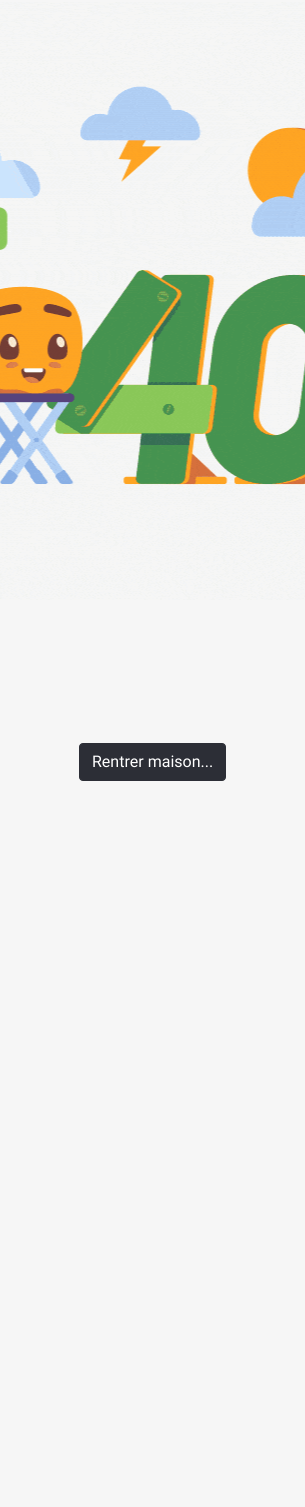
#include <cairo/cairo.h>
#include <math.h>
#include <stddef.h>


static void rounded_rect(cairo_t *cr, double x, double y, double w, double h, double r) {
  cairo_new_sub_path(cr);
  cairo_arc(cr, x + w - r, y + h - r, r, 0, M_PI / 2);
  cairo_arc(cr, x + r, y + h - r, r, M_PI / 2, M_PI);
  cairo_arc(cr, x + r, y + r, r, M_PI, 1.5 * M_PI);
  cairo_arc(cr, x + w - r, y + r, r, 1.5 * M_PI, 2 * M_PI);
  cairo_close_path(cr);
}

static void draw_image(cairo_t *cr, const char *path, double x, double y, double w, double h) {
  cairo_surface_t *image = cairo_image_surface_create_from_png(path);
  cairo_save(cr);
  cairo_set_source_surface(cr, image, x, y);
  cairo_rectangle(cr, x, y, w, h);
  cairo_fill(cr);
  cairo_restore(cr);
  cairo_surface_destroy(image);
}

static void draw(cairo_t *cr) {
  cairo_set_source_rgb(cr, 246 / 255.0, 246 / 255.0, 246 / 255.0);
  cairo_paint(cr);
  draw_image(cr, "images/1.png", 0, 2, 305, 598);
  cairo_set_source_rgb(cr, 44 / 255.0, 46 / 255.0, 54 / 255.0);
  rounded_rect(cr, 79.5, 743.5, 146, 37, 3.5);
  cairo_fill_preserve(cr);
  cairo_set_line_width(cr, 1);
  cairo_stroke(cr);
  cairo_select_font_face(cr, "Roboto", CAIRO_FONT_SLANT_NORMAL, CAIRO_FONT_WEIGHT_NORMAL);
  cairo_set_font_size(cr, 16);
  cairo_set_source_rgb(cr, 1, 1, 1);
  cairo_move_to(cr, 92, 767);
  cairo_show_text(cr, "Rentrer maison...");
}

int main(void) {
  cairo_surface_t *surface = cairo_image_surface_create(CAIRO_FORMAT_RGB24, 305, 1507);
  cairo_t *cr = cairo_create(surface);
  cairo_font_options_t *options = cairo_font_options_create();
  cairo_font_options_set_hint_metrics(options, CAIRO_HINT_METRICS_OFF);
  cairo_font_options_set_hint_style(options, CAIRO_HINT_STYLE_NONE);
  cairo_set_font_options(cr, options);
  cairo_set_miter_limit(cr, 4);
  draw(cr);
  cairo_surface_write_to_png(surface, "out.png");
  cairo_font_options_destroy(options);
  cairo_destroy(cr);
  cairo_surface_destroy(surface);
  return 0;
}
